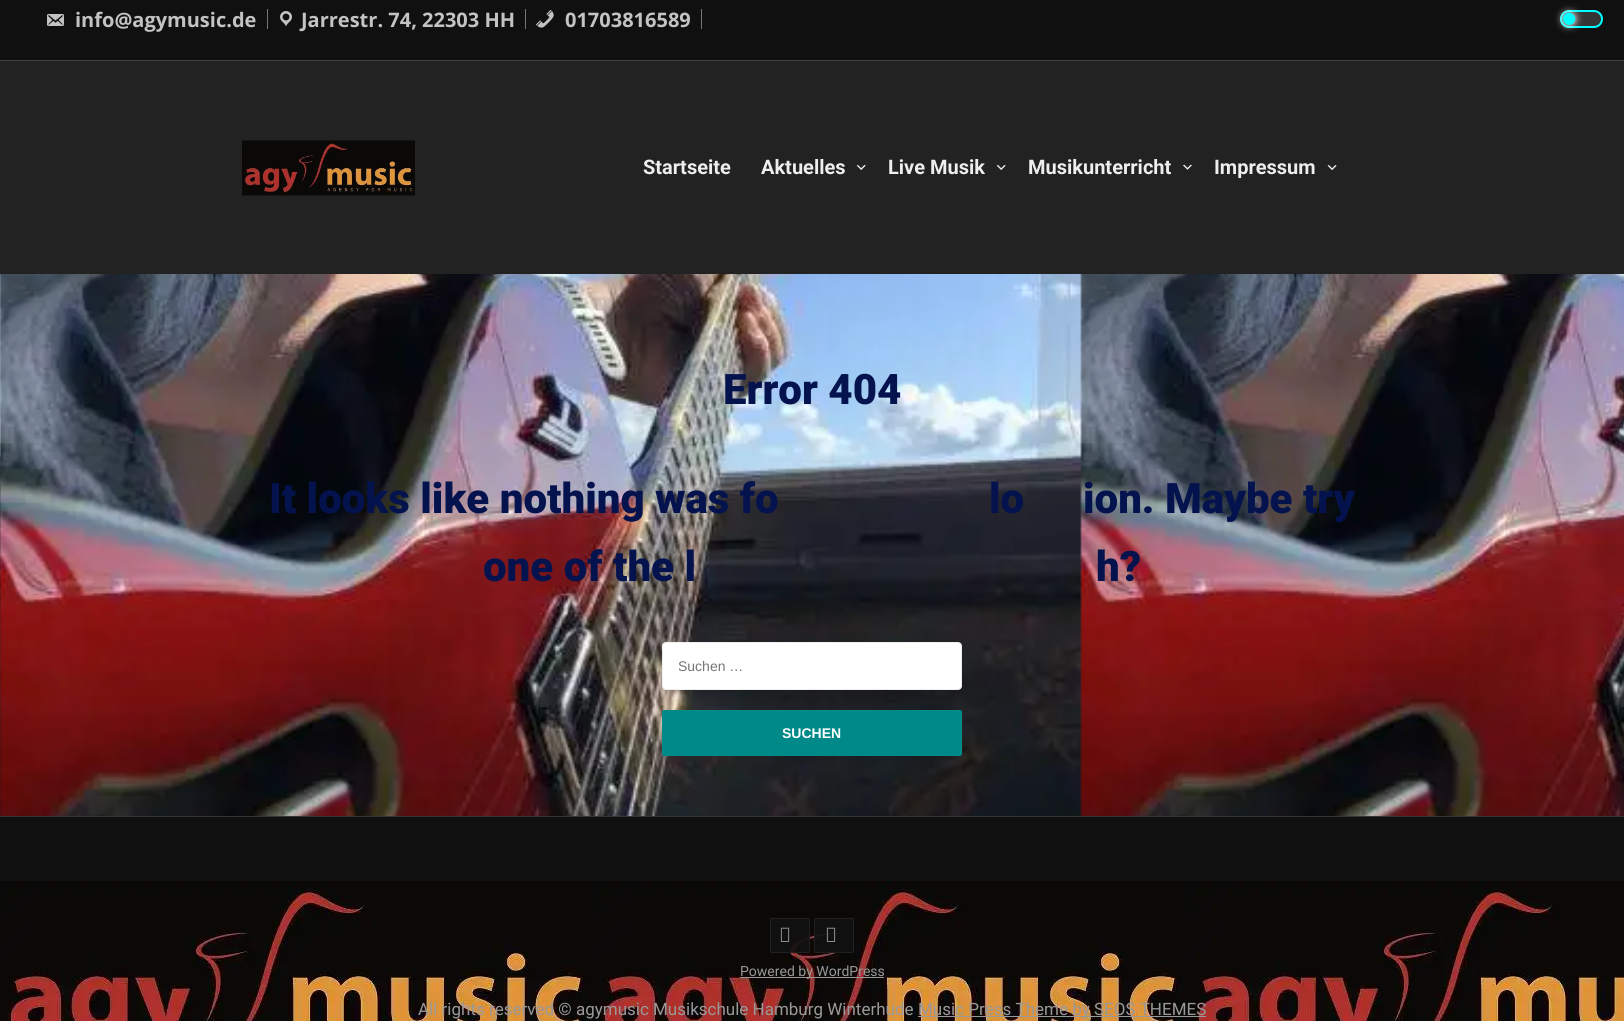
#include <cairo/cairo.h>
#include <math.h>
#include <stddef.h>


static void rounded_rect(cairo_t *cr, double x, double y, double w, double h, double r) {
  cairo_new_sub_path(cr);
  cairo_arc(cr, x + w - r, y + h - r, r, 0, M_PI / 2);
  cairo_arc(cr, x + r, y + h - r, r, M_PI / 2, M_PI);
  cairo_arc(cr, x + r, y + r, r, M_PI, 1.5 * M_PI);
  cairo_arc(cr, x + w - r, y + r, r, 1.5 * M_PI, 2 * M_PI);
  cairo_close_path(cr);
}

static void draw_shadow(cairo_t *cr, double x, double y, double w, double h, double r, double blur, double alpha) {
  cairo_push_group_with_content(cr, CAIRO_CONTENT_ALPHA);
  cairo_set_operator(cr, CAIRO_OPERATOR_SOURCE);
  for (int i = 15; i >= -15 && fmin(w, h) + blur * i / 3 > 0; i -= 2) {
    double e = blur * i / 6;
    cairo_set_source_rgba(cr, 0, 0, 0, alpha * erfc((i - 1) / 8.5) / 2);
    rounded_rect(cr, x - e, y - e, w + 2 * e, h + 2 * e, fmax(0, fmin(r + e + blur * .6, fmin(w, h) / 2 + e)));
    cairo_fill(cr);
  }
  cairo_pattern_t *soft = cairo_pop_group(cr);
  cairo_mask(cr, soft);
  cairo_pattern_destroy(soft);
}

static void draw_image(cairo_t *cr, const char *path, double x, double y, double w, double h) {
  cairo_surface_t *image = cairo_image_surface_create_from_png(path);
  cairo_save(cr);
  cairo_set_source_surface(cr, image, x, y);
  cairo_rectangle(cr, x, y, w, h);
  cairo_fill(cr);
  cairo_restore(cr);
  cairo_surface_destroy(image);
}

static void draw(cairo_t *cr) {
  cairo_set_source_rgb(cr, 1, 1, 1);
  cairo_paint(cr);
  draw_image(cr, "images/1.png", 0, 274, 1624, 542);
  cairo_set_source_rgb(cr, 16 / 255.0, 16 / 255.0, 16 / 255.0);
  cairo_rectangle(cr, 0, 0, 1624, 60);
  cairo_fill(cr);
  cairo_set_source_rgb(cr, 68 / 255.0, 68 / 255.0, 68 / 255.0);
  cairo_rectangle(cr, 0, 60, 1624, 1);
  cairo_fill(cr);
  cairo_set_source_rgb(cr, 119 / 255.0, 119 / 255.0, 119 / 255.0);
  cairo_rectangle(cr, 267, 9, 1, 20);
  cairo_fill(cr);
  draw_image(cr, "images/2.png", 47, 14, 17, 12);
  cairo_rectangle(cr, 525, 9, 1, 20);
  cairo_fill(cr);
  draw_image(cr, "images/3.png", 280, 11, 12, 16);
  cairo_rectangle(cr, 701, 9, 1, 20);
  cairo_fill(cr);
  draw_image(cr, "images/4.png", 536, 10, 18, 18);
  cairo_set_source_rgb(cr, 52 / 255.0, 52 / 255.0, 52 / 255.0);
  rounded_rect(cr, 1561, 11, 41, 16, 8);
  cairo_fill_preserve(cr);
  cairo_set_source_rgb(cr, 0, 1, 1);
  cairo_stroke(cr);
  cairo_set_source_rgb(cr, 1, 1, 1);
  draw_shadow(cr, 1563, 13, 12, 12, 6, 4, 1);
  cairo_set_source_rgb(cr, 0, 1, 1);
  cairo_new_path(cr);
  cairo_move_to(cr, 1565, 14.5);
  cairo_curve_to(cr, 1570.5, 9, 1579, 17.5, 1573.5, 23);
  cairo_curve_to(cr, 1568, 29, 1559, 20, 1565, 14.5);
  cairo_close_path(cr);
  cairo_fill(cr);
  cairo_set_source_rgb(cr, 34 / 255.0, 34 / 255.0, 34 / 255.0);
  cairo_rectangle(cr, 0, 61, 1624, 213);
  cairo_fill(cr);
  draw_image(cr, "images/5.png", 242, 140, 173, 56);
  draw_image(cr, "images/6.png", 856, 165, 10, 5);
  draw_image(cr, "images/7.png", 996, 165, 10, 5);
  draw_image(cr, "images/8.png", 1183, 164, 9, 6);
  draw_image(cr, "images/9.png", 1327, 165, 10, 6);
  cairo_set_source_rgb(cr, 0, 0, 0);
  draw_shadow(cr, 662, 648, 300, 48, 4, 11, 0.18);
  cairo_set_source_rgb(cr, 1, 1, 1);
  rounded_rect(cr, 662.5, 642.5, 299, 47, 3.5);
  cairo_fill_preserve(cr);
  cairo_set_source_rgb(cr, 238 / 255.0, 238 / 255.0, 238 / 255.0);
  cairo_set_line_width(cr, 1);
  cairo_stroke(cr);
  cairo_set_source_rgb(cr, 0, 137 / 255.0, 137 / 255.0);
  rounded_rect(cr, 662, 710, 300, 46, 2);
  cairo_fill(cr);
  cairo_set_source_rgb(cr, 16 / 255.0, 16 / 255.0, 16 / 255.0);
  cairo_rectangle(cr, 0, 817, 1624, 64);
  cairo_fill(cr);
  cairo_set_source_rgb(cr, 51 / 255.0, 51 / 255.0, 51 / 255.0);
  cairo_rectangle(cr, 0, 816, 1624, 1);
  cairo_fill(cr);
  draw_image(cr, "images/10.png", 0, 881, 1624, 140);
  cairo_set_source_rgba(cr, 17 / 255.0, 17 / 255.0, 17 / 255.0, 0.9);
  rounded_rect(cr, 770, 918, 40, 35, 2);
  cairo_fill(cr);
  rounded_rect(cr, 770.5, 918.5, 39, 34, 1.5);
  cairo_set_source_rgba(cr, 34 / 255.0, 34 / 255.0, 34 / 255.0, 0.9);
  cairo_stroke(cr);
  draw_image(cr, "images/11.png", 780, 927, 10, 15);
  cairo_set_source_rgba(cr, 17 / 255.0, 17 / 255.0, 17 / 255.0, 0.9);
  rounded_rect(cr, 814, 918, 40, 35, 2);
  cairo_fill(cr);
  rounded_rect(cr, 814.5, 918.5, 39, 34, 1.5);
  cairo_set_source_rgba(cr, 34 / 255.0, 34 / 255.0, 34 / 255.0, 0.9);
  cairo_stroke(cr);
  draw_image(cr, "images/12.png", 826, 927, 10, 15);
  cairo_set_source_rgb(cr, 153 / 255.0, 153 / 255.0, 153 / 255.0);
  cairo_rectangle(cr, 740, 977, 144, 1);
  cairo_fill(cr);
  cairo_rectangle(cr, 918, 1016, 288, 1);
  cairo_fill(cr);
  cairo_select_font_face(cr, "Open Sans", CAIRO_FONT_SLANT_NORMAL, CAIRO_FONT_WEIGHT_BOLD);
  cairo_set_font_size(cr, 20);
  cairo_set_source_rgb(cr, 195 / 255.0, 195 / 255.0, 195 / 255.0);
  cairo_move_to(cr, 75, 27);
  cairo_show_text(cr, "info@agymusic.de");
  cairo_move_to(cr, 301, 27);
  cairo_show_text(cr, "Jarrestr. 74, 22303 HH");
  cairo_move_to(cr, 565, 27);
  cairo_show_text(cr, "01703816589");
  cairo_select_font_face(cr, "Roboto", CAIRO_FONT_SLANT_NORMAL, CAIRO_FONT_WEIGHT_BOLD);
  cairo_set_source_rgb(cr, 238 / 255.0, 238 / 255.0, 238 / 255.0);
  cairo_move_to(cr, 643, 174);
  cairo_show_text(cr, "Startseite");
  cairo_move_to(cr, 761, 174);
  cairo_show_text(cr, "Aktuelles");
  cairo_move_to(cr, 888, 174);
  cairo_show_text(cr, "Live Musik");
  cairo_move_to(cr, 1028, 174);
  cairo_show_text(cr, "Musikunterricht");
  cairo_move_to(cr, 1214, 174);
  cairo_show_text(cr, "Impressum");
  cairo_select_font_face(cr, "Roboto Black", CAIRO_FONT_SLANT_NORMAL, CAIRO_FONT_WEIGHT_NORMAL);
  cairo_set_font_size(cr, 42);
  cairo_set_source_rgb(cr, 4 / 255.0, 19 / 255.0, 78 / 255.0);
  cairo_move_to(cr, 723, 404);
  cairo_show_text(cr, "Error 404");
  cairo_move_to(cr, 269, 513);
  cairo_show_text(cr, "It looks like nothing was fo");
  cairo_move_to(cr, 989, 513);
  cairo_show_text(cr, "lo");
  cairo_move_to(cr, 1083, 513);
  cairo_show_text(cr, "ion. Maybe try");
  cairo_move_to(cr, 483, 581);
  cairo_show_text(cr, "one of the l");
  cairo_move_to(cr, 1096, 581);
  cairo_show_text(cr, "h?");
  cairo_select_font_face(cr, "Liberation Sans", CAIRO_FONT_SLANT_NORMAL, CAIRO_FONT_WEIGHT_NORMAL);
  cairo_set_font_size(cr, 14);
  cairo_set_source_rgb(cr, 117 / 255.0, 117 / 255.0, 117 / 255.0);
  cairo_move_to(cr, 678, 671);
  cairo_show_text(cr, "Suchen …");
  cairo_select_font_face(cr, "Liberation Sans", CAIRO_FONT_SLANT_NORMAL, CAIRO_FONT_WEIGHT_BOLD);
  cairo_set_source_rgb(cr, 1, 1, 1);
  cairo_move_to(cr, 782, 738);
  cairo_show_text(cr, "SUCHEN");
  cairo_select_font_face(cr, "Roboto", CAIRO_FONT_SLANT_NORMAL, CAIRO_FONT_WEIGHT_NORMAL);
  cairo_set_source_rgb(cr, 153 / 255.0, 153 / 255.0, 153 / 255.0);
  cairo_move_to(cr, 740, 976);
  cairo_show_text(cr, "Powered by WordPress");
  cairo_set_font_size(cr, 17);
  cairo_move_to(cr, 418, 1015);
  cairo_show_text(cr, "All rights reserved © agymusic Musikschule Hamburg Winterhude");
  cairo_move_to(cr, 918, 1015);
  cairo_show_text(cr, "Music Press Theme by SEOS THEMES");
}

int main(void) {
  cairo_surface_t *surface = cairo_image_surface_create(CAIRO_FORMAT_RGB24, 1624, 1021);
  cairo_t *cr = cairo_create(surface);
  cairo_font_options_t *options = cairo_font_options_create();
  cairo_font_options_set_hint_metrics(options, CAIRO_HINT_METRICS_OFF);
  cairo_font_options_set_hint_style(options, CAIRO_HINT_STYLE_NONE);
  cairo_set_font_options(cr, options);
  cairo_set_miter_limit(cr, 4);
  draw(cr);
  cairo_surface_write_to_png(surface, "out.png");
  cairo_font_options_destroy(options);
  cairo_destroy(cr);
  cairo_surface_destroy(surface);
  return 0;
}
